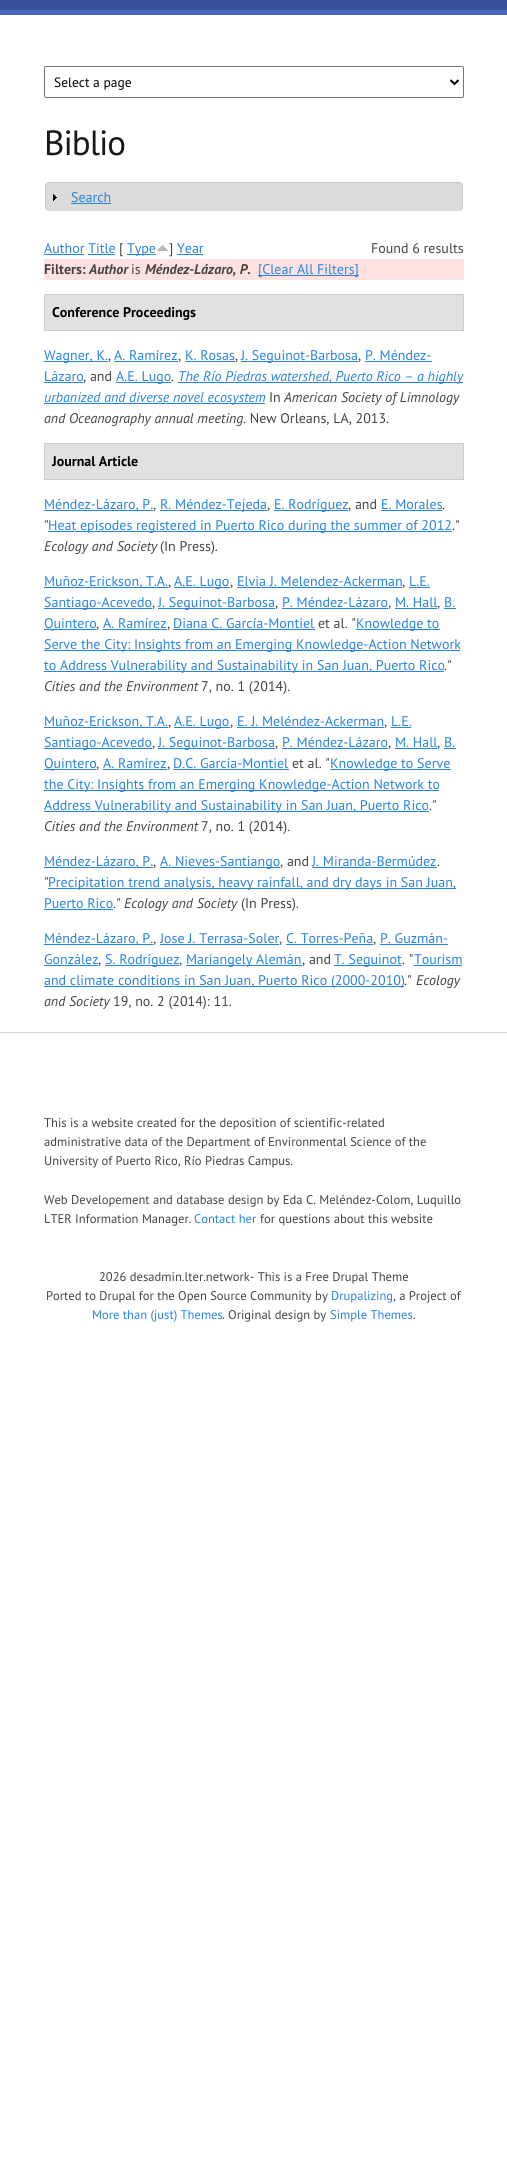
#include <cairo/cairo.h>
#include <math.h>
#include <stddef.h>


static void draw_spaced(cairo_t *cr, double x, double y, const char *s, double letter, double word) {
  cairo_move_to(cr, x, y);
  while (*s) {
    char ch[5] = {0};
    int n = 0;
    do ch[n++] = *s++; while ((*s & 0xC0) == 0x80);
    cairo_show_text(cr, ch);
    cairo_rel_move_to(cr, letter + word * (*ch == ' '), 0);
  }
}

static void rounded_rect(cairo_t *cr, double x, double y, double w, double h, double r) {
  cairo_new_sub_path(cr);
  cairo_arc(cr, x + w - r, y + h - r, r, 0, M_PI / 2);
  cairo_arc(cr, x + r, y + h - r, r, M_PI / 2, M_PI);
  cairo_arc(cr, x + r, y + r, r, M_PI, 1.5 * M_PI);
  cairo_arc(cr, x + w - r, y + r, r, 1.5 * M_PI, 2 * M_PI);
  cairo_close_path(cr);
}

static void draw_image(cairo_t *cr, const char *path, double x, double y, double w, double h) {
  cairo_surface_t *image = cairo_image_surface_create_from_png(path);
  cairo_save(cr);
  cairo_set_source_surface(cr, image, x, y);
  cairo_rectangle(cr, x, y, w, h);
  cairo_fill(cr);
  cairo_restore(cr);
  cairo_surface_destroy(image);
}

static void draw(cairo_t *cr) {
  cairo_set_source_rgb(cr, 1, 1, 1);
  cairo_paint(cr);
  cairo_set_source_rgb(cr, 55 / 255.0, 81 / 255.0, 153 / 255.0);
  cairo_rectangle(cr, 0, 0, 507, 10);
  cairo_fill(cr);
  cairo_set_source_rgb(cr, 69 / 255.0, 101 / 255.0, 190 / 255.0);
  cairo_rectangle(cr, 0, 10, 507, 5);
  cairo_fill(cr);
  rounded_rect(cr, 44.5, 66.5, 419, 31, 1.5);
  cairo_set_source_rgb(cr, 118 / 255.0, 118 / 255.0, 118 / 255.0);
  cairo_set_line_width(cr, 1);
  cairo_stroke(cr);
  cairo_new_path(cr);
  cairo_move_to(cr, 450.5, 80);
  cairo_line_to(cr, 454.5, 84);
  cairo_line_to(cr, 458.5, 80);
  cairo_set_source_rgb(cr, 0, 0, 0);
  cairo_set_line_width(cr, 2);
  cairo_stroke(cr);
  cairo_set_source_rgb(cr, 219 / 255.0, 219 / 255.0, 219 / 255.0);
  rounded_rect(cr, 45, 182, 418, 29, 4);
  cairo_fill(cr);
  cairo_set_source_rgb(cr, 204 / 255.0, 204 / 255.0, 204 / 255.0);
  cairo_set_fill_rule(cr, CAIRO_FILL_RULE_EVEN_ODD);
  cairo_new_path(cr);
  cairo_move_to(cr, 49, 182);
  cairo_line_to(cr, 459, 182);
  cairo_curve_to(cr, 461, 182, 463, 184, 463, 186);
  cairo_line_to(cr, 463, 207);
  cairo_curve_to(cr, 463, 209, 461, 211, 459, 211);
  cairo_line_to(cr, 49, 211);
  cairo_curve_to(cr, 47, 211, 45, 209, 45, 207);
  cairo_line_to(cr, 45, 186);
  cairo_curve_to(cr, 45, 184, 47, 182, 49, 182);
  cairo_close_path(cr);
  cairo_move_to(cr, 49, 183);
  cairo_line_to(cr, 459, 183);
  cairo_curve_to(cr, 461, 183, 462, 184, 462, 186);
  cairo_line_to(cr, 462, 207);
  cairo_curve_to(cr, 462, 209, 461, 211, 459, 211);
  cairo_line_to(cr, 49, 211);
  cairo_curve_to(cr, 47, 211, 46, 209, 46, 207);
  cairo_line_to(cr, 46, 186);
  cairo_curve_to(cr, 46, 184, 47, 183, 49, 183);
  cairo_close_path(cr);
  cairo_fill(cr);
  draw_image(cr, "images/1.png", 53, 194, 4, 7);
  cairo_set_source_rgb(cr, 40 / 255.0, 131 / 255.0, 222 / 255.0);
  cairo_rectangle(cr, 71, 203, 40, 1);
  cairo_fill(cr);
  cairo_rectangle(cr, 44, 254, 40, 1);
  cairo_fill(cr);
  cairo_rectangle(cr, 127, 254, 29, 1);
  cairo_fill(cr);
  draw_image(cr, "images/2.png", 157, 245, 11, 6);
  cairo_rectangle(cr, 177, 254, 26, 1);
  cairo_fill(cr);
  cairo_rectangle(cr, 88, 254, 27, 1);
  cairo_fill(cr);
  cairo_set_source_rgb(cr, 1, 225 / 255.0, 225 / 255.0);
  cairo_rectangle(cr, 44, 259, 420, 21);
  cairo_fill(cr);
  cairo_set_source_rgb(cr, 40 / 255.0, 131 / 255.0, 222 / 255.0);
  cairo_rectangle(cr, 258, 275, 101, 1);
  cairo_fill(cr);
  cairo_set_source_rgb(cr, 225 / 255.0, 225 / 255.0, 225 / 255.0);
  cairo_rectangle(cr, 44.5, 294.5, 419, 36);
  cairo_fill_preserve(cr);
  cairo_set_source_rgb(cr, 204 / 255.0, 204 / 255.0, 204 / 255.0);
  cairo_set_line_width(cr, 1);
  cairo_stroke(cr);
  cairo_set_source_rgb(cr, 40 / 255.0, 131 / 255.0, 222 / 255.0);
  cairo_rectangle(cr, 44, 361, 64, 1);
  cairo_fill(cr);
  cairo_rectangle(cr, 114, 361, 64, 1);
  cairo_fill(cr);
  cairo_rectangle(cr, 185, 361, 50, 1);
  cairo_fill(cr);
  cairo_rectangle(cr, 241, 361, 117, 1);
  cairo_fill(cr);
  cairo_rectangle(cr, 365, 361, 67, 1);
  cairo_fill(cr);
  cairo_rectangle(cr, 44, 382, 39, 1);
  cairo_fill(cr);
  cairo_rectangle(cr, 116, 382, 55, 1);
  cairo_fill(cr);
  cairo_rectangle(cr, 178, 382, 285, 1);
  cairo_fill(cr);
  cairo_rectangle(cr, 44, 403, 221, 1);
  cairo_fill(cr);
  cairo_set_source_rgb(cr, 225 / 255.0, 225 / 255.0, 225 / 255.0);
  cairo_rectangle(cr, 44.5, 443.5, 419, 36);
  cairo_fill_preserve(cr);
  cairo_set_source_rgb(cr, 204 / 255.0, 204 / 255.0, 204 / 255.0);
  cairo_stroke(cr);
  cairo_set_source_rgb(cr, 40 / 255.0, 131 / 255.0, 222 / 255.0);
  cairo_rectangle(cr, 44, 510, 109, 1);
  cairo_fill(cr);
  cairo_rectangle(cr, 160, 510, 107, 1);
  cairo_fill(cr);
  cairo_rectangle(cr, 274, 510, 74, 1);
  cairo_fill(cr);
  cairo_rectangle(cr, 381, 510, 61, 1);
  cairo_fill(cr);
  cairo_rectangle(cr, 48, 531, 404, 1);
  cairo_fill(cr);
  cairo_rectangle(cr, 44, 587, 124, 1);
  cairo_fill(cr);
  cairo_rectangle(cr, 174, 587, 56, 1);
  cairo_fill(cr);
  cairo_rectangle(cr, 237, 587, 165, 1);
  cairo_fill(cr);
  cairo_rectangle(cr, 409, 587, 21, 1);
  cairo_fill(cr);
  cairo_rectangle(cr, 44, 608, 108, 1);
  cairo_fill(cr);
  cairo_rectangle(cr, 158, 608, 117, 1);
  cairo_fill(cr);
  cairo_rectangle(cr, 282, 608, 106, 1);
  cairo_fill(cr);
  cairo_rectangle(cr, 395, 608, 42, 1);
  cairo_fill(cr);
  cairo_rectangle(cr, 444, 608, 12, 1);
  cairo_fill(cr);
  cairo_rectangle(cr, 44, 629, 52, 1);
  cairo_fill(cr);
  cairo_rectangle(cr, 103, 629, 64, 1);
  cairo_fill(cr);
  cairo_rectangle(cr, 173, 629, 142, 1);
  cairo_fill(cr);
  cairo_rectangle(cr, 356, 629, 84, 1);
  cairo_fill(cr);
  cairo_rectangle(cr, 44, 650, 416, 1);
  cairo_fill(cr);
  cairo_rectangle(cr, 44, 671, 400, 1);
  cairo_fill(cr);
  cairo_rectangle(cr, 44, 727, 124, 1);
  cairo_fill(cr);
  cairo_rectangle(cr, 174, 727, 56, 1);
  cairo_fill(cr);
  cairo_rectangle(cr, 237, 727, 147, 1);
  cairo_fill(cr);
  cairo_rectangle(cr, 391, 727, 20, 1);
  cairo_fill(cr);
  cairo_rectangle(cr, 44, 748, 108, 1);
  cairo_fill(cr);
  cairo_rectangle(cr, 158, 748, 117, 1);
  cairo_fill(cr);
  cairo_rectangle(cr, 282, 748, 106, 1);
  cairo_fill(cr);
  cairo_rectangle(cr, 395, 748, 42, 1);
  cairo_fill(cr);
  cairo_rectangle(cr, 444, 748, 12, 1);
  cairo_fill(cr);
  cairo_rectangle(cr, 44, 769, 52, 1);
  cairo_fill(cr);
  cairo_rectangle(cr, 103, 769, 64, 1);
  cairo_fill(cr);
  cairo_rectangle(cr, 173, 769, 116, 1);
  cairo_fill(cr);
  cairo_rectangle(cr, 330, 769, 121, 1);
  cairo_fill(cr);
  cairo_rectangle(cr, 44, 790, 395, 1);
  cairo_fill(cr);
  cairo_rectangle(cr, 44, 811, 385, 1);
  cairo_fill(cr);
  cairo_rectangle(cr, 44, 867, 109, 1);
  cairo_fill(cr);
  cairo_rectangle(cr, 160, 867, 120, 1);
  cairo_fill(cr);
  cairo_rectangle(cr, 312, 867, 125, 1);
  cairo_fill(cr);
  cairo_rectangle(cr, 48, 888, 408, 1);
  cairo_fill(cr);
  cairo_rectangle(cr, 44, 909, 69, 1);
  cairo_fill(cr);
  cairo_rectangle(cr, 44, 944, 109, 1);
  cairo_fill(cr);
  cairo_rectangle(cr, 160, 944, 119, 1);
  cairo_fill(cr);
  cairo_rectangle(cr, 286, 944, 87, 1);
  cairo_fill(cr);
  cairo_rectangle(cr, 380, 944, 68, 1);
  cairo_fill(cr);
  cairo_rectangle(cr, 44, 965, 54, 1);
  cairo_fill(cr);
  cairo_rectangle(cr, 105, 965, 74, 1);
  cairo_fill(cr);
  cairo_rectangle(cr, 186, 965, 116, 1);
  cairo_fill(cr);
  cairo_rectangle(cr, 334, 965, 68, 1);
  cairo_fill(cr);
  cairo_rectangle(cr, 414, 965, 48, 1);
  cairo_fill(cr);
  cairo_rectangle(cr, 44, 986, 360, 1);
  cairo_fill(cr);
  cairo_set_source_rgb(cr, 214 / 255.0, 214 / 255.0, 214 / 255.0);
  cairo_rectangle(cr, 0, 1032, 507, 1);
  cairo_fill(cr);
  cairo_select_font_face(cr, "PT Sans", CAIRO_FONT_SLANT_NORMAL, CAIRO_FONT_WEIGHT_NORMAL);
  cairo_set_font_size(cr, 13.5);
  cairo_set_source_rgb(cr, 0, 0, 0);
  cairo_move_to(cr, 54, 87);
  cairo_show_text(cr, "Select a page");
  cairo_set_font_size(cr, 35);
  cairo_set_source_rgb(cr, 24 / 255.0, 24 / 255.0, 24 / 255.0);
  draw_spaced(cr, 44, 155, "Biblio", -1, 0);
  cairo_set_font_size(cr, 14);
  cairo_set_source_rgb(cr, 40 / 255.0, 131 / 255.0, 222 / 255.0);
  cairo_move_to(cr, 71, 202);
  cairo_show_text(cr, "Search");
  cairo_move_to(cr, 44, 253);
  cairo_show_text(cr, "Author Title");
  cairo_set_source_rgb(cr, 68 / 255.0, 68 / 255.0, 68 / 255.0);
  cairo_move_to(cr, 119, 253);
  cairo_show_text(cr, "[");
  cairo_set_source_rgb(cr, 40 / 255.0, 131 / 255.0, 222 / 255.0);
  cairo_move_to(cr, 127, 253);
  cairo_show_text(cr, "Type");
  cairo_set_source_rgb(cr, 68 / 255.0, 68 / 255.0, 68 / 255.0);
  cairo_move_to(cr, 169, 253);
  cairo_show_text(cr, "]");
  cairo_set_source_rgb(cr, 40 / 255.0, 131 / 255.0, 222 / 255.0);
  cairo_move_to(cr, 177, 253);
  cairo_show_text(cr, "Year");
  cairo_set_source_rgb(cr, 68 / 255.0, 68 / 255.0, 68 / 255.0);
  cairo_move_to(cr, 371, 253);
  cairo_show_text(cr, "Found 6 results");
  cairo_select_font_face(cr, "PT Sans", CAIRO_FONT_SLANT_NORMAL, CAIRO_FONT_WEIGHT_BOLD);
  cairo_move_to(cr, 44, 274);
  cairo_show_text(cr, "Filters:");
  cairo_select_font_face(cr, "PT Sans", CAIRO_FONT_SLANT_ITALIC, CAIRO_FONT_WEIGHT_BOLD);
  cairo_move_to(cr, 89, 274);
  cairo_show_text(cr, "Author");
  cairo_select_font_face(cr, "PT Sans", CAIRO_FONT_SLANT_NORMAL, CAIRO_FONT_WEIGHT_NORMAL);
  cairo_move_to(cr, 131, 274);
  cairo_show_text(cr, "is");
  cairo_select_font_face(cr, "PT Sans", CAIRO_FONT_SLANT_ITALIC, CAIRO_FONT_WEIGHT_BOLD);
  cairo_move_to(cr, 145, 274);
  cairo_show_text(cr, "Méndez-Lázaro, P.");
  cairo_select_font_face(cr, "PT Sans", CAIRO_FONT_SLANT_NORMAL, CAIRO_FONT_WEIGHT_NORMAL);
  cairo_set_source_rgb(cr, 40 / 255.0, 131 / 255.0, 222 / 255.0);
  cairo_move_to(cr, 258, 274);
  cairo_show_text(cr, "[Clear All Filters]");
  cairo_select_font_face(cr, "PT Sans", CAIRO_FONT_SLANT_NORMAL, CAIRO_FONT_WEIGHT_BOLD);
  cairo_set_source_rgb(cr, 0, 0, 0);
  cairo_move_to(cr, 52, 317);
  cairo_show_text(cr, "Conference Proceedings");
  cairo_select_font_face(cr, "PT Sans", CAIRO_FONT_SLANT_NORMAL, CAIRO_FONT_WEIGHT_NORMAL);
  cairo_set_source_rgb(cr, 40 / 255.0, 131 / 255.0, 222 / 255.0);
  cairo_move_to(cr, 44, 360);
  cairo_show_text(cr, "Wagner, K.");
  cairo_set_source_rgb(cr, 68 / 255.0, 68 / 255.0, 68 / 255.0);
  cairo_move_to(cr, 108, 360);
  cairo_show_text(cr, ",");
  cairo_set_source_rgb(cr, 40 / 255.0, 131 / 255.0, 222 / 255.0);
  cairo_move_to(cr, 114, 360);
  cairo_show_text(cr, "A. Ramírez");
  cairo_set_source_rgb(cr, 68 / 255.0, 68 / 255.0, 68 / 255.0);
  cairo_move_to(cr, 178, 360);
  cairo_show_text(cr, ",");
  cairo_set_source_rgb(cr, 40 / 255.0, 131 / 255.0, 222 / 255.0);
  cairo_move_to(cr, 185, 360);
  cairo_show_text(cr, "K. Rosas");
  cairo_set_source_rgb(cr, 68 / 255.0, 68 / 255.0, 68 / 255.0);
  cairo_move_to(cr, 235, 360);
  cairo_show_text(cr, ",");
  cairo_set_source_rgb(cr, 40 / 255.0, 131 / 255.0, 222 / 255.0);
  cairo_move_to(cr, 241, 360);
  cairo_show_text(cr, "J. Seguinot-Barbosa");
  cairo_set_source_rgb(cr, 68 / 255.0, 68 / 255.0, 68 / 255.0);
  cairo_move_to(cr, 358, 360);
  cairo_show_text(cr, ",");
  cairo_set_source_rgb(cr, 40 / 255.0, 131 / 255.0, 222 / 255.0);
  cairo_move_to(cr, 365, 360);
  cairo_show_text(cr, "P. Méndez-");
  cairo_move_to(cr, 44, 381);
  cairo_show_text(cr, "Lázaro");
  cairo_set_source_rgb(cr, 68 / 255.0, 68 / 255.0, 68 / 255.0);
  cairo_move_to(cr, 83, 381);
  cairo_show_text(cr, ", and");
  cairo_set_source_rgb(cr, 40 / 255.0, 131 / 255.0, 222 / 255.0);
  cairo_move_to(cr, 116, 381);
  cairo_show_text(cr, "A.E. Lugo");
  cairo_set_source_rgb(cr, 68 / 255.0, 68 / 255.0, 68 / 255.0);
  cairo_move_to(cr, 171, 381);
  cairo_show_text(cr, ".");
  cairo_select_font_face(cr, "PT Sans", CAIRO_FONT_SLANT_ITALIC, CAIRO_FONT_WEIGHT_NORMAL);
  cairo_set_source_rgb(cr, 40 / 255.0, 131 / 255.0, 222 / 255.0);
  cairo_move_to(cr, 178, 381);
  cairo_show_text(cr, "The Río Piedras watershed, Puerto Rico – a highly");
  cairo_move_to(cr, 44, 402);
  cairo_show_text(cr, "urbanized and diverse novel ecosystem");
  cairo_select_font_face(cr, "PT Sans", CAIRO_FONT_SLANT_NORMAL, CAIRO_FONT_WEIGHT_NORMAL);
  cairo_set_source_rgb(cr, 68 / 255.0, 68 / 255.0, 68 / 255.0);
  cairo_move_to(cr, 269, 402);
  cairo_show_text(cr, "In");
  cairo_select_font_face(cr, "PT Sans", CAIRO_FONT_SLANT_ITALIC, CAIRO_FONT_WEIGHT_NORMAL);
  cairo_move_to(cr, 284, 402);
  cairo_show_text(cr, "American Society of Limnology");
  cairo_move_to(cr, 44, 423);
  cairo_show_text(cr, "and Oceanography annual meeting");
  cairo_select_font_face(cr, "PT Sans", CAIRO_FONT_SLANT_NORMAL, CAIRO_FONT_WEIGHT_NORMAL);
  cairo_move_to(cr, 243, 423);
  cairo_show_text(cr, ". New Orleans, LA, 2013.");
  cairo_select_font_face(cr, "PT Sans", CAIRO_FONT_SLANT_NORMAL, CAIRO_FONT_WEIGHT_BOLD);
  cairo_set_source_rgb(cr, 0, 0, 0);
  cairo_move_to(cr, 52, 466);
  cairo_show_text(cr, "Journal Article");
  cairo_select_font_face(cr, "PT Sans", CAIRO_FONT_SLANT_NORMAL, CAIRO_FONT_WEIGHT_NORMAL);
  cairo_set_source_rgb(cr, 40 / 255.0, 131 / 255.0, 222 / 255.0);
  cairo_move_to(cr, 44, 509);
  cairo_show_text(cr, "Méndez-Lázaro, P.");
  cairo_set_source_rgb(cr, 68 / 255.0, 68 / 255.0, 68 / 255.0);
  cairo_move_to(cr, 153, 509);
  cairo_show_text(cr, ",");
  cairo_set_source_rgb(cr, 40 / 255.0, 131 / 255.0, 222 / 255.0);
  cairo_move_to(cr, 160, 509);
  cairo_show_text(cr, "R. Méndez-Tejeda");
  cairo_set_source_rgb(cr, 68 / 255.0, 68 / 255.0, 68 / 255.0);
  cairo_move_to(cr, 267, 509);
  cairo_show_text(cr, ",");
  cairo_set_source_rgb(cr, 40 / 255.0, 131 / 255.0, 222 / 255.0);
  cairo_move_to(cr, 274, 509);
  cairo_show_text(cr, "E. Rodríguez");
  cairo_set_source_rgb(cr, 68 / 255.0, 68 / 255.0, 68 / 255.0);
  cairo_move_to(cr, 348, 509);
  cairo_show_text(cr, ", and");
  cairo_set_source_rgb(cr, 40 / 255.0, 131 / 255.0, 222 / 255.0);
  cairo_move_to(cr, 381, 509);
  cairo_show_text(cr, "E. Morales");
  cairo_set_source_rgb(cr, 68 / 255.0, 68 / 255.0, 68 / 255.0);
  cairo_move_to(cr, 442, 509);
  cairo_show_text(cr, ".");
  cairo_move_to(cr, 44, 530);
  cairo_show_text(cr, "\"");
  cairo_set_source_rgb(cr, 40 / 255.0, 131 / 255.0, 222 / 255.0);
  cairo_move_to(cr, 48, 530);
  cairo_show_text(cr, "Heat episodes registered in Puerto Rico during the summer of 2012");
  cairo_set_source_rgb(cr, 68 / 255.0, 68 / 255.0, 68 / 255.0);
  cairo_move_to(cr, 452, 530);
  cairo_show_text(cr, ".\"");
  cairo_select_font_face(cr, "PT Sans", CAIRO_FONT_SLANT_ITALIC, CAIRO_FONT_WEIGHT_NORMAL);
  cairo_move_to(cr, 44, 551);
  cairo_show_text(cr, "Ecology and Society");
  cairo_select_font_face(cr, "PT Sans", CAIRO_FONT_SLANT_NORMAL, CAIRO_FONT_WEIGHT_NORMAL);
  cairo_move_to(cr, 160, 551);
  cairo_show_text(cr, "(In Press).");
  cairo_set_source_rgb(cr, 40 / 255.0, 131 / 255.0, 222 / 255.0);
  cairo_move_to(cr, 44, 586);
  cairo_show_text(cr, "Muñoz-Erickson, T.A.");
  cairo_set_source_rgb(cr, 68 / 255.0, 68 / 255.0, 68 / 255.0);
  cairo_move_to(cr, 168, 586);
  cairo_show_text(cr, ",");
  cairo_set_source_rgb(cr, 40 / 255.0, 131 / 255.0, 222 / 255.0);
  cairo_move_to(cr, 174, 586);
  cairo_show_text(cr, "A.E. Lugo");
  cairo_set_source_rgb(cr, 68 / 255.0, 68 / 255.0, 68 / 255.0);
  cairo_move_to(cr, 230, 586);
  cairo_show_text(cr, ",");
  cairo_set_source_rgb(cr, 40 / 255.0, 131 / 255.0, 222 / 255.0);
  cairo_move_to(cr, 237, 586);
  cairo_show_text(cr, "Elvia J. Melendez-Ackerman");
  cairo_set_source_rgb(cr, 68 / 255.0, 68 / 255.0, 68 / 255.0);
  cairo_move_to(cr, 402, 586);
  cairo_show_text(cr, ",");
  cairo_set_source_rgb(cr, 40 / 255.0, 131 / 255.0, 222 / 255.0);
  cairo_move_to(cr, 409, 586);
  cairo_show_text(cr, "L.E.");
  cairo_move_to(cr, 44, 607);
  cairo_show_text(cr, "Santiago-Acevedo");
  cairo_set_source_rgb(cr, 68 / 255.0, 68 / 255.0, 68 / 255.0);
  cairo_move_to(cr, 152, 607);
  cairo_show_text(cr, ",");
  cairo_set_source_rgb(cr, 40 / 255.0, 131 / 255.0, 222 / 255.0);
  cairo_move_to(cr, 158, 607);
  cairo_show_text(cr, "J. Seguinot-Barbosa");
  cairo_set_source_rgb(cr, 68 / 255.0, 68 / 255.0, 68 / 255.0);
  cairo_move_to(cr, 275, 607);
  cairo_show_text(cr, ",");
  cairo_set_source_rgb(cr, 40 / 255.0, 131 / 255.0, 222 / 255.0);
  cairo_move_to(cr, 282, 607);
  cairo_show_text(cr, "P. Méndez-Lázaro");
  cairo_set_source_rgb(cr, 68 / 255.0, 68 / 255.0, 68 / 255.0);
  cairo_move_to(cr, 388, 607);
  cairo_show_text(cr, ",");
  cairo_set_source_rgb(cr, 40 / 255.0, 131 / 255.0, 222 / 255.0);
  cairo_move_to(cr, 395, 607);
  cairo_show_text(cr, "M. Hall");
  cairo_set_source_rgb(cr, 68 / 255.0, 68 / 255.0, 68 / 255.0);
  cairo_move_to(cr, 437, 607);
  cairo_show_text(cr, ",");
  cairo_set_source_rgb(cr, 40 / 255.0, 131 / 255.0, 222 / 255.0);
  cairo_move_to(cr, 444, 607);
  cairo_show_text(cr, "B.");
  cairo_move_to(cr, 44, 628);
  cairo_show_text(cr, "Quintero");
  cairo_set_source_rgb(cr, 68 / 255.0, 68 / 255.0, 68 / 255.0);
  cairo_move_to(cr, 96, 628);
  cairo_show_text(cr, ",");
  cairo_set_source_rgb(cr, 40 / 255.0, 131 / 255.0, 222 / 255.0);
  cairo_move_to(cr, 103, 628);
  cairo_show_text(cr, "A. Ramírez");
  cairo_set_source_rgb(cr, 68 / 255.0, 68 / 255.0, 68 / 255.0);
  cairo_move_to(cr, 167, 628);
  cairo_show_text(cr, ",");
  cairo_set_source_rgb(cr, 40 / 255.0, 131 / 255.0, 222 / 255.0);
  cairo_move_to(cr, 173, 628);
  cairo_show_text(cr, "Diana C. García-Montiel");
  cairo_set_source_rgb(cr, 68 / 255.0, 68 / 255.0, 68 / 255.0);
  cairo_move_to(cr, 318, 628);
  cairo_show_text(cr, "et al. \"");
  cairo_set_source_rgb(cr, 40 / 255.0, 131 / 255.0, 222 / 255.0);
  cairo_move_to(cr, 356, 628);
  cairo_show_text(cr, "Knowledge to");
  cairo_move_to(cr, 44, 649);
  cairo_show_text(cr, "Serve the City: Insights from an Emerging Knowledge-Action Network");
  cairo_move_to(cr, 44, 670);
  cairo_show_text(cr, "to Address Vulnerability and Sustainability in San Juan, Puerto Rico");
  cairo_set_source_rgb(cr, 68 / 255.0, 68 / 255.0, 68 / 255.0);
  cairo_move_to(cr, 444, 670);
  cairo_show_text(cr, ".\"");
  cairo_select_font_face(cr, "PT Sans", CAIRO_FONT_SLANT_ITALIC, CAIRO_FONT_WEIGHT_NORMAL);
  cairo_move_to(cr, 44, 691);
  cairo_show_text(cr, "Cities and the Environment");
  cairo_select_font_face(cr, "PT Sans", CAIRO_FONT_SLANT_NORMAL, CAIRO_FONT_WEIGHT_NORMAL);
  cairo_move_to(cr, 201, 691);
  cairo_show_text(cr, "7, no. 1 (2014).");
  cairo_set_source_rgb(cr, 40 / 255.0, 131 / 255.0, 222 / 255.0);
  cairo_move_to(cr, 44, 726);
  cairo_show_text(cr, "Muñoz-Erickson, T.A.");
  cairo_set_source_rgb(cr, 68 / 255.0, 68 / 255.0, 68 / 255.0);
  cairo_move_to(cr, 168, 726);
  cairo_show_text(cr, ",");
  cairo_set_source_rgb(cr, 40 / 255.0, 131 / 255.0, 222 / 255.0);
  cairo_move_to(cr, 174, 726);
  cairo_show_text(cr, "A.E. Lugo");
  cairo_set_source_rgb(cr, 68 / 255.0, 68 / 255.0, 68 / 255.0);
  cairo_move_to(cr, 230, 726);
  cairo_show_text(cr, ",");
  cairo_set_source_rgb(cr, 40 / 255.0, 131 / 255.0, 222 / 255.0);
  cairo_move_to(cr, 237, 726);
  cairo_show_text(cr, "E. J. Meléndez-Ackerman");
  cairo_set_source_rgb(cr, 68 / 255.0, 68 / 255.0, 68 / 255.0);
  cairo_move_to(cr, 384, 726);
  cairo_show_text(cr, ",");
  cairo_set_source_rgb(cr, 40 / 255.0, 131 / 255.0, 222 / 255.0);
  cairo_move_to(cr, 391, 726);
  cairo_show_text(cr, "L.E.");
  cairo_move_to(cr, 44, 747);
  cairo_show_text(cr, "Santiago-Acevedo");
  cairo_set_source_rgb(cr, 68 / 255.0, 68 / 255.0, 68 / 255.0);
  cairo_move_to(cr, 152, 747);
  cairo_show_text(cr, ",");
  cairo_set_source_rgb(cr, 40 / 255.0, 131 / 255.0, 222 / 255.0);
  cairo_move_to(cr, 158, 747);
  cairo_show_text(cr, "J. Seguinot-Barbosa");
  cairo_set_source_rgb(cr, 68 / 255.0, 68 / 255.0, 68 / 255.0);
  cairo_move_to(cr, 275, 747);
  cairo_show_text(cr, ",");
  cairo_set_source_rgb(cr, 40 / 255.0, 131 / 255.0, 222 / 255.0);
  cairo_move_to(cr, 282, 747);
  cairo_show_text(cr, "P. Méndez-Lázaro");
  cairo_set_source_rgb(cr, 68 / 255.0, 68 / 255.0, 68 / 255.0);
  cairo_move_to(cr, 388, 747);
  cairo_show_text(cr, ",");
  cairo_set_source_rgb(cr, 40 / 255.0, 131 / 255.0, 222 / 255.0);
  cairo_move_to(cr, 395, 747);
  cairo_show_text(cr, "M. Hall");
  cairo_set_source_rgb(cr, 68 / 255.0, 68 / 255.0, 68 / 255.0);
  cairo_move_to(cr, 437, 747);
  cairo_show_text(cr, ",");
  cairo_set_source_rgb(cr, 40 / 255.0, 131 / 255.0, 222 / 255.0);
  cairo_move_to(cr, 444, 747);
  cairo_show_text(cr, "B.");
  cairo_move_to(cr, 44, 768);
  cairo_show_text(cr, "Quintero");
  cairo_set_source_rgb(cr, 68 / 255.0, 68 / 255.0, 68 / 255.0);
  cairo_move_to(cr, 96, 768);
  cairo_show_text(cr, ",");
  cairo_set_source_rgb(cr, 40 / 255.0, 131 / 255.0, 222 / 255.0);
  cairo_move_to(cr, 103, 768);
  cairo_show_text(cr, "A. Ramírez");
  cairo_set_source_rgb(cr, 68 / 255.0, 68 / 255.0, 68 / 255.0);
  cairo_move_to(cr, 167, 768);
  cairo_show_text(cr, ",");
  cairo_set_source_rgb(cr, 40 / 255.0, 131 / 255.0, 222 / 255.0);
  cairo_move_to(cr, 173, 768);
  cairo_show_text(cr, "D.C. García-Montiel");
  cairo_set_source_rgb(cr, 68 / 255.0, 68 / 255.0, 68 / 255.0);
  cairo_move_to(cr, 292, 768);
  cairo_show_text(cr, "et al. \"");
  cairo_set_source_rgb(cr, 40 / 255.0, 131 / 255.0, 222 / 255.0);
  cairo_move_to(cr, 330, 768);
  cairo_show_text(cr, "Knowledge to Serve");
  cairo_move_to(cr, 44, 789);
  cairo_show_text(cr, "the City: Insights from an Emerging Knowledge-Action Network to");
  cairo_move_to(cr, 44, 810);
  cairo_show_text(cr, "Address Vulnerability and Sustainability in San Juan, Puerto Rico");
  cairo_set_source_rgb(cr, 68 / 255.0, 68 / 255.0, 68 / 255.0);
  cairo_move_to(cr, 429, 810);
  cairo_show_text(cr, ".\"");
  cairo_select_font_face(cr, "PT Sans", CAIRO_FONT_SLANT_ITALIC, CAIRO_FONT_WEIGHT_NORMAL);
  cairo_move_to(cr, 44, 831);
  cairo_show_text(cr, "Cities and the Environment");
  cairo_select_font_face(cr, "PT Sans", CAIRO_FONT_SLANT_NORMAL, CAIRO_FONT_WEIGHT_NORMAL);
  cairo_move_to(cr, 201, 831);
  cairo_show_text(cr, "7, no. 1 (2014).");
  cairo_set_source_rgb(cr, 40 / 255.0, 131 / 255.0, 222 / 255.0);
  cairo_move_to(cr, 44, 866);
  cairo_show_text(cr, "Méndez-Lázaro, P.");
  cairo_set_source_rgb(cr, 68 / 255.0, 68 / 255.0, 68 / 255.0);
  cairo_move_to(cr, 153, 866);
  cairo_show_text(cr, ",");
  cairo_set_source_rgb(cr, 40 / 255.0, 131 / 255.0, 222 / 255.0);
  cairo_move_to(cr, 160, 866);
  cairo_show_text(cr, "A. Nieves-Santiango");
  cairo_set_source_rgb(cr, 68 / 255.0, 68 / 255.0, 68 / 255.0);
  cairo_move_to(cr, 280, 866);
  cairo_show_text(cr, ", and");
  cairo_set_source_rgb(cr, 40 / 255.0, 131 / 255.0, 222 / 255.0);
  cairo_move_to(cr, 312, 866);
  cairo_show_text(cr, "J. Miranda-Bermúdez");
  cairo_set_source_rgb(cr, 68 / 255.0, 68 / 255.0, 68 / 255.0);
  cairo_move_to(cr, 437, 866);
  cairo_show_text(cr, ".");
  cairo_move_to(cr, 44, 887);
  cairo_show_text(cr, "\"");
  cairo_set_source_rgb(cr, 40 / 255.0, 131 / 255.0, 222 / 255.0);
  cairo_move_to(cr, 48, 887);
  cairo_show_text(cr, "Precipitation trend analysis, heavy rainfall, and dry days in San Juan,");
  cairo_move_to(cr, 44, 908);
  cairo_show_text(cr, "Puerto Rico");
  cairo_set_source_rgb(cr, 68 / 255.0, 68 / 255.0, 68 / 255.0);
  cairo_move_to(cr, 113, 908);
  cairo_show_text(cr, ".\"");
  cairo_select_font_face(cr, "PT Sans", CAIRO_FONT_SLANT_ITALIC, CAIRO_FONT_WEIGHT_NORMAL);
  cairo_move_to(cr, 124, 908);
  cairo_show_text(cr, "Ecology and Society");
  cairo_select_font_face(cr, "PT Sans", CAIRO_FONT_SLANT_NORMAL, CAIRO_FONT_WEIGHT_NORMAL);
  cairo_move_to(cr, 241, 908);
  cairo_show_text(cr, "(In Press).");
  cairo_set_source_rgb(cr, 40 / 255.0, 131 / 255.0, 222 / 255.0);
  cairo_move_to(cr, 44, 943);
  cairo_show_text(cr, "Méndez-Lázaro, P.");
  cairo_set_source_rgb(cr, 68 / 255.0, 68 / 255.0, 68 / 255.0);
  cairo_move_to(cr, 153, 943);
  cairo_show_text(cr, ",");
  cairo_set_source_rgb(cr, 40 / 255.0, 131 / 255.0, 222 / 255.0);
  cairo_move_to(cr, 160, 943);
  cairo_show_text(cr, "Jose J. Terrasa-Soler");
  cairo_set_source_rgb(cr, 68 / 255.0, 68 / 255.0, 68 / 255.0);
  cairo_move_to(cr, 279, 943);
  cairo_show_text(cr, ",");
  cairo_set_source_rgb(cr, 40 / 255.0, 131 / 255.0, 222 / 255.0);
  cairo_move_to(cr, 286, 943);
  cairo_show_text(cr, "C. Torres-Peña");
  cairo_set_source_rgb(cr, 68 / 255.0, 68 / 255.0, 68 / 255.0);
  cairo_move_to(cr, 373, 943);
  cairo_show_text(cr, ",");
  cairo_set_source_rgb(cr, 40 / 255.0, 131 / 255.0, 222 / 255.0);
  cairo_move_to(cr, 380, 943);
  cairo_show_text(cr, "P. Guzmán-");
  cairo_move_to(cr, 44, 964);
  cairo_show_text(cr, "González");
  cairo_set_source_rgb(cr, 68 / 255.0, 68 / 255.0, 68 / 255.0);
  cairo_move_to(cr, 98, 964);
  cairo_show_text(cr, ",");
  cairo_set_source_rgb(cr, 40 / 255.0, 131 / 255.0, 222 / 255.0);
  cairo_move_to(cr, 105, 964);
  cairo_show_text(cr, "S. Rodríguez");
  cairo_set_source_rgb(cr, 68 / 255.0, 68 / 255.0, 68 / 255.0);
  cairo_move_to(cr, 179, 964);
  cairo_show_text(cr, ",");
  cairo_set_source_rgb(cr, 40 / 255.0, 131 / 255.0, 222 / 255.0);
  cairo_move_to(cr, 186, 964);
  cairo_show_text(cr, "Mariangely Alemán");
  cairo_set_source_rgb(cr, 68 / 255.0, 68 / 255.0, 68 / 255.0);
  cairo_move_to(cr, 302, 964);
  cairo_show_text(cr, ", and");
  cairo_set_source_rgb(cr, 40 / 255.0, 131 / 255.0, 222 / 255.0);
  cairo_move_to(cr, 334, 964);
  cairo_show_text(cr, "T. Seguinot");
  cairo_set_source_rgb(cr, 68 / 255.0, 68 / 255.0, 68 / 255.0);
  cairo_move_to(cr, 402, 964);
  cairo_show_text(cr, ". \"");
  cairo_set_source_rgb(cr, 40 / 255.0, 131 / 255.0, 222 / 255.0);
  cairo_move_to(cr, 414, 964);
  cairo_show_text(cr, "Tourism");
  cairo_move_to(cr, 44, 985);
  cairo_show_text(cr, "and climate conditions in San Juan, Puerto Rico (2000-2010)");
  cairo_set_source_rgb(cr, 68 / 255.0, 68 / 255.0, 68 / 255.0);
  cairo_move_to(cr, 404, 985);
  cairo_show_text(cr, ".\"");
  cairo_select_font_face(cr, "PT Sans", CAIRO_FONT_SLANT_ITALIC, CAIRO_FONT_WEIGHT_NORMAL);
  cairo_move_to(cr, 416, 985);
  cairo_show_text(cr, "Ecology");
  cairo_move_to(cr, 44, 1006);
  cairo_show_text(cr, "and Society");
  cairo_select_font_face(cr, "PT Sans", CAIRO_FONT_SLANT_NORMAL, CAIRO_FONT_WEIGHT_NORMAL);
  cairo_move_to(cr, 113, 1006);
  cairo_show_text(cr, "19, no. 2 (2014): 11.");
  cairo_set_font_size(cr, 12.6);
  cairo_move_to(cr, 44, 1127);
  cairo_show_text(cr, "This is a website created for the deposition of scientific-related");
  cairo_move_to(cr, 44, 1146);
  cairo_show_text(cr, "administrative data of the Department of Environmental Science of the");
  cairo_move_to(cr, 44, 1165);
  cairo_show_text(cr, "University of Puerto Rico, Río Piedras Campus.");
  cairo_move_to(cr, 44, 1204);
  cairo_show_text(cr, "Web Developement and database design by Eda C. Meléndez-Colom, Luquillo");
  cairo_move_to(cr, 44, 1223);
  cairo_show_text(cr, "LTER Information Manager.");
  cairo_set_source_rgb(cr, 40 / 255.0, 131 / 255.0, 222 / 255.0);
  cairo_move_to(cr, 194, 1223);
  cairo_show_text(cr, "Contact her");
  cairo_set_source_rgb(cr, 68 / 255.0, 68 / 255.0, 68 / 255.0);
  cairo_move_to(cr, 260, 1223);
  cairo_show_text(cr, "for questions about this website");
  cairo_move_to(cr, 99, 1281);
  cairo_show_text(cr, "2026 desadmin.lter.network- This is a Free Drupal Theme");
  cairo_move_to(cr, 46, 1300);
  cairo_show_text(cr, "Ported to Drupal for the Open Source Community by");
  cairo_set_source_rgb(cr, 40 / 255.0, 131 / 255.0, 222 / 255.0);
  cairo_move_to(cr, 331, 1300);
  cairo_show_text(cr, "Drupalizing");
  cairo_set_source_rgb(cr, 68 / 255.0, 68 / 255.0, 68 / 255.0);
  cairo_move_to(cr, 393, 1300);
  cairo_show_text(cr, ", a Project of");
  cairo_set_source_rgb(cr, 40 / 255.0, 131 / 255.0, 222 / 255.0);
  cairo_move_to(cr, 92, 1319);
  cairo_show_text(cr, "More than (just) Themes");
  cairo_set_source_rgb(cr, 68 / 255.0, 68 / 255.0, 68 / 255.0);
  cairo_move_to(cr, 222, 1319);
  cairo_show_text(cr, ". Original design by");
  cairo_set_source_rgb(cr, 40 / 255.0, 131 / 255.0, 222 / 255.0);
  cairo_move_to(cr, 330, 1319);
  cairo_show_text(cr, "Simple Themes");
  cairo_set_source_rgb(cr, 68 / 255.0, 68 / 255.0, 68 / 255.0);
  cairo_move_to(cr, 413, 1319);
  cairo_show_text(cr, ".");
}

int main(void) {
  cairo_surface_t *surface = cairo_image_surface_create(CAIRO_FORMAT_RGB24, 507, 2167);
  cairo_t *cr = cairo_create(surface);
  cairo_font_options_t *options = cairo_font_options_create();
  cairo_font_options_set_hint_metrics(options, CAIRO_HINT_METRICS_OFF);
  cairo_font_options_set_hint_style(options, CAIRO_HINT_STYLE_NONE);
  cairo_set_font_options(cr, options);
  cairo_set_miter_limit(cr, 4);
  draw(cr);
  cairo_surface_write_to_png(surface, "out.png");
  cairo_font_options_destroy(options);
  cairo_destroy(cr);
  cairo_surface_destroy(surface);
  return 0;
}
